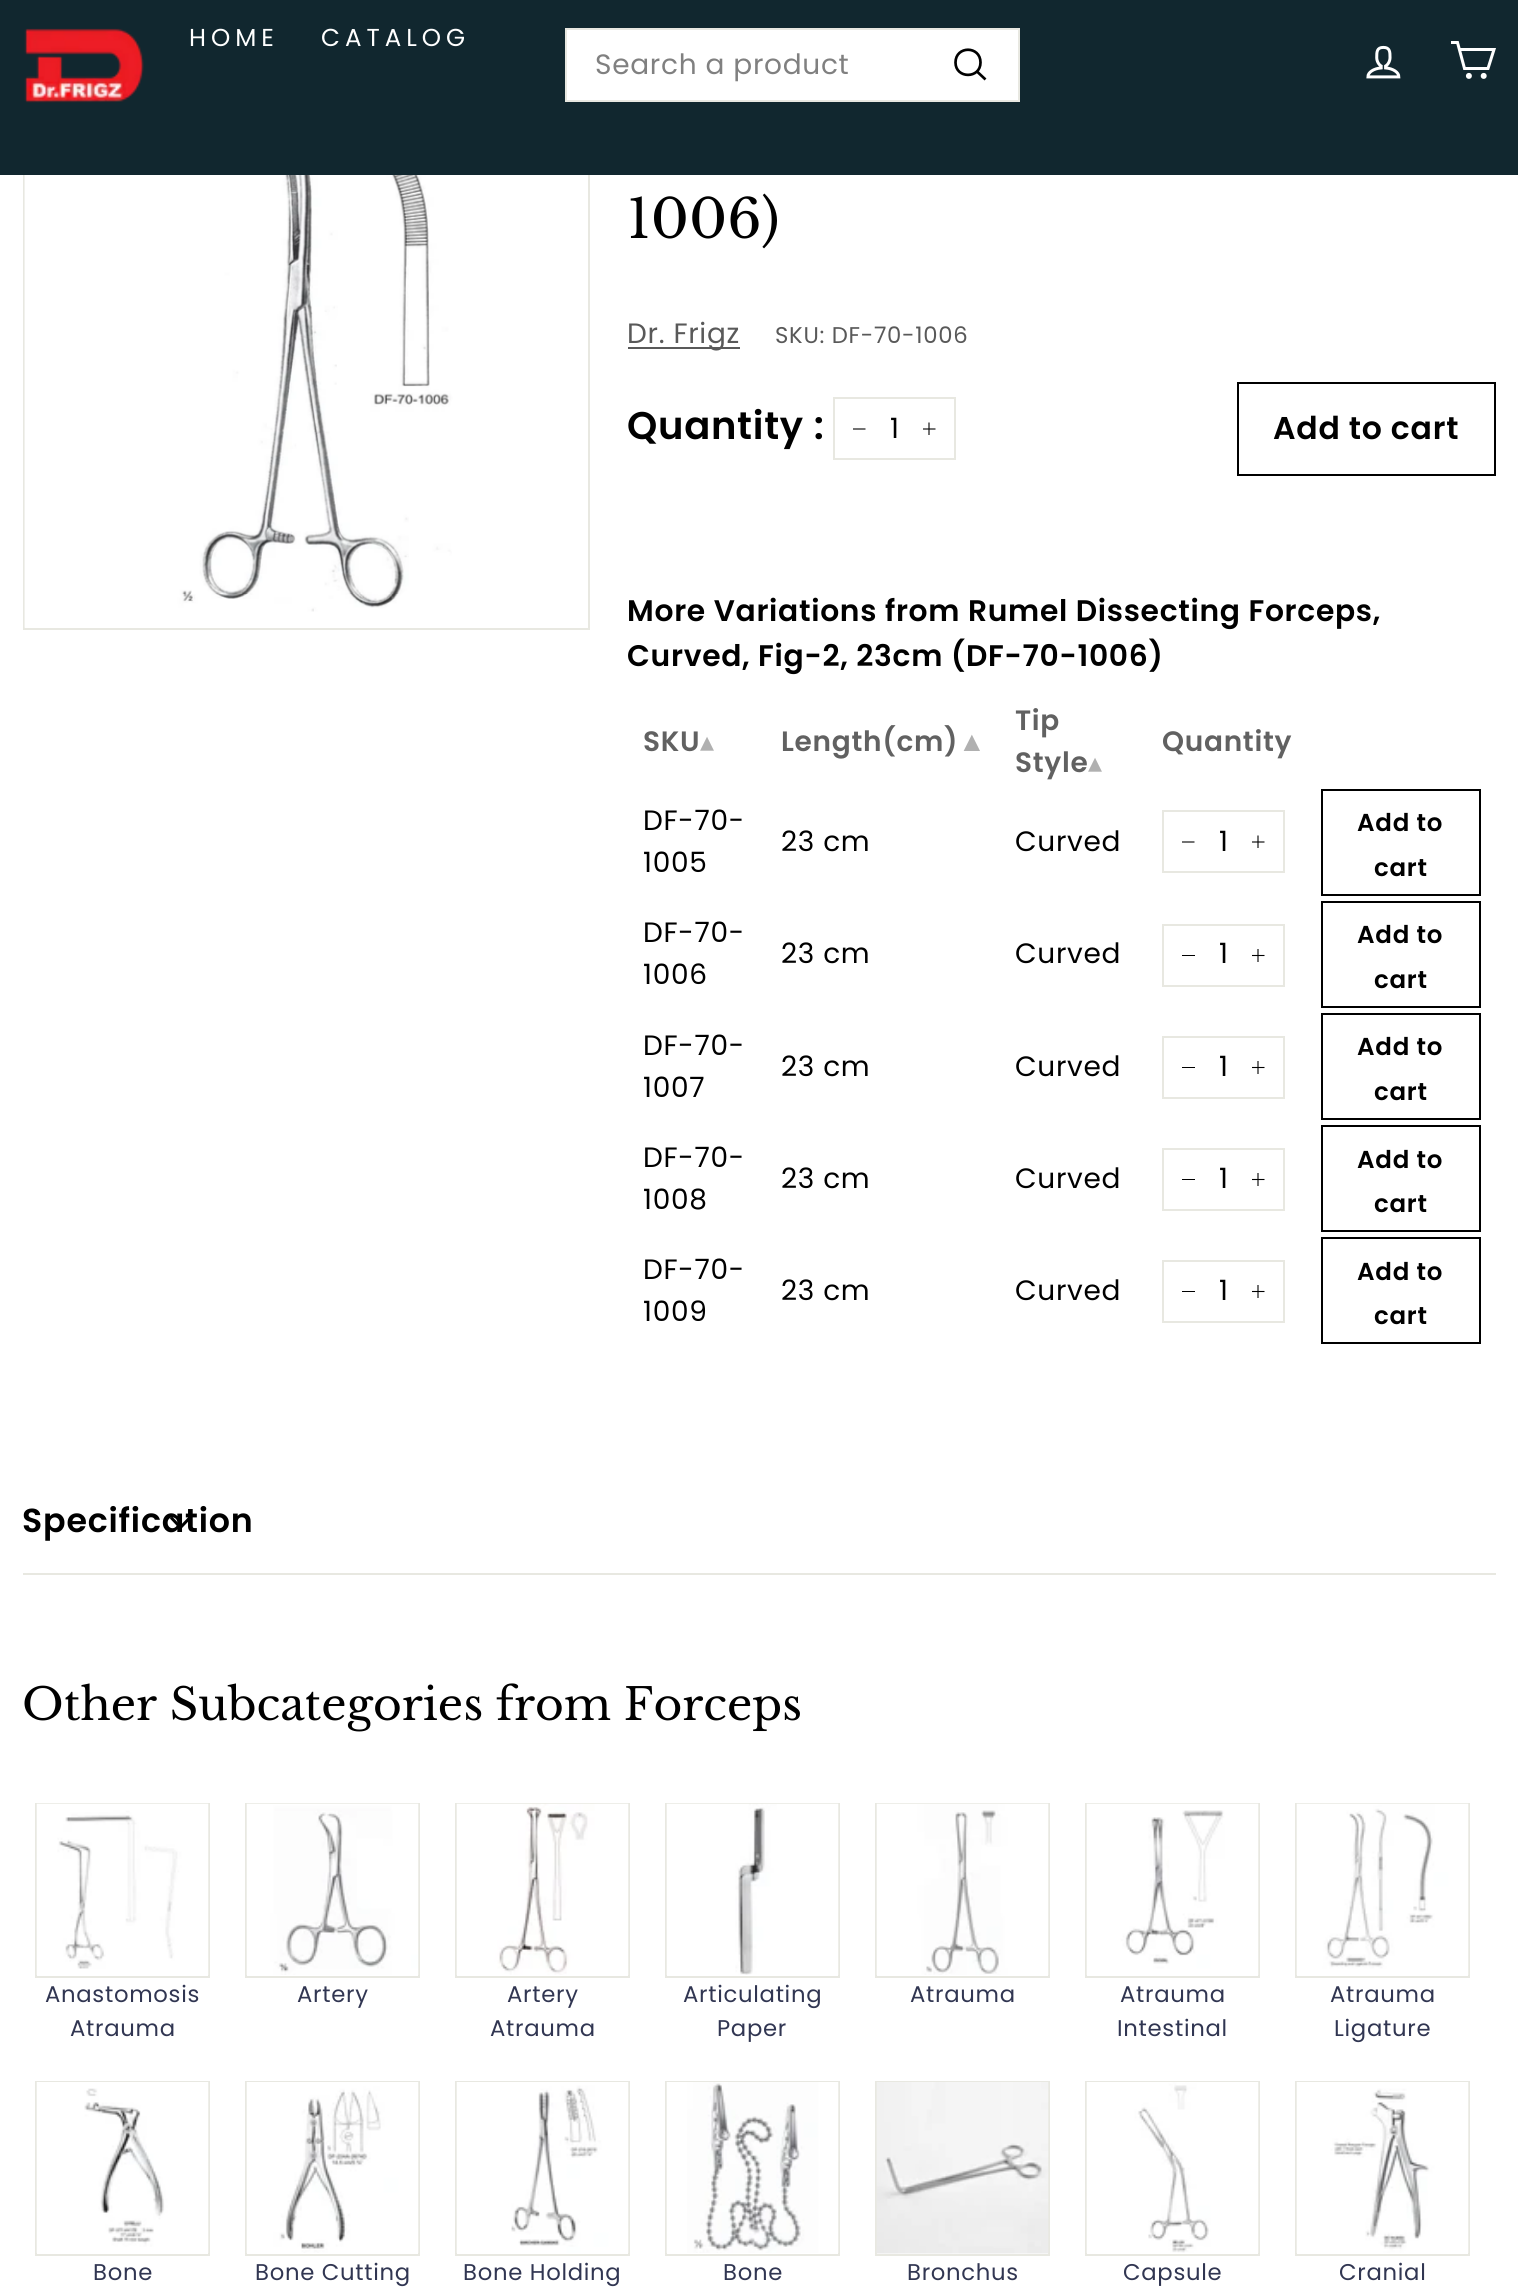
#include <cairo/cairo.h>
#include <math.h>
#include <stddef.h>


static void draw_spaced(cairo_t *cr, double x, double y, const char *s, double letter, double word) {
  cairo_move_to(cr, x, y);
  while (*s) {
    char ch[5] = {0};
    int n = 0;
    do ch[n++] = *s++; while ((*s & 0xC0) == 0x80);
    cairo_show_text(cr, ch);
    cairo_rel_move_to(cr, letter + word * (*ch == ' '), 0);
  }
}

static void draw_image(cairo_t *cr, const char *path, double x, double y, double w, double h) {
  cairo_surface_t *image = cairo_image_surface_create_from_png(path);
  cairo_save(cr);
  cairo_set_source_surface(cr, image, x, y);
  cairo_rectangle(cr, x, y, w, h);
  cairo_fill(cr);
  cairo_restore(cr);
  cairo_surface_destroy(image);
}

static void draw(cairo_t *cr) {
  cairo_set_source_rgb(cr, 1, 1, 1);
  cairo_paint(cr);
  cairo_rectangle(cr, 24, 64, 565, 565);
  cairo_set_source_rgb(cr, 232 / 255.0, 232 / 255.0, 225 / 255.0);
  cairo_stroke(cr);
  cairo_set_source_rgb(cr, 17 / 255.0, 39 / 255.0, 47 / 255.0);
  cairo_rectangle(cr, 0, 0, 1518, 175);
  cairo_fill(cr);
  draw_image(cr, "images/1.png", 24, 28, 120, 75);
  cairo_set_source_rgb(cr, 1, 1, 1);
  cairo_rectangle(cr, 566, 29, 453, 72);
  cairo_fill_preserve(cr);
  cairo_set_source_rgb(cr, 232 / 255.0, 232 / 255.0, 225 / 255.0);
  cairo_stroke(cr);
  cairo_new_path(cr);
  cairo_move_to(cr, 980.5, 62.5);
  cairo_curve_to(cr, 980.5, 79, 955.5, 79, 955.5, 62.5);
  cairo_curve_to(cr, 955.5, 45.5, 980.5, 45.5, 980.5, 62.5);
  cairo_close_path(cr);
  cairo_move_to(cr, 985.5, 79.5);
  cairo_line_to(cr, 977, 71.5);
  cairo_set_source_rgb(cr, 0, 0, 0);
  cairo_set_line_width(cr, 2.7);
  cairo_stroke(cr);
  draw_image(cr, "images/2.png", 1366, 45, 35, 34);
  cairo_new_path(cr);
  cairo_move_to(cr, 1459.5, 49.5);
  cairo_line_to(cr, 1494, 49.5);
  cairo_line_to(cr, 1488, 68.5);
  cairo_line_to(cr, 1464.5, 68.5);
  cairo_line_to(cr, 1457.5, 42.5);
  cairo_line_to(cr, 1451, 42.5);
  cairo_set_source_rgb(cr, 1, 1, 1);
  cairo_set_line_width(cr, 3);
  cairo_stroke(cr);
  cairo_arc(cr, 1468.9, 75.9, 1.5, 0, 2 * M_PI);
  cairo_stroke(cr);
  cairo_arc(cr, 1483.7, 75.9, 1.5, 0, 2 * M_PI);
  cairo_stroke(cr);
  draw_image(cr, "images/3.png", 24, 175, 564, 453);
  cairo_set_source_rgb(cr, 89 / 255.0, 89 / 255.0, 89 / 255.0);
  cairo_rectangle(cr, 628, 347, 112, 2);
  cairo_fill(cr);
  cairo_rectangle(cr, 834, 398, 121, 61);
  cairo_set_source_rgb(cr, 232 / 255.0, 232 / 255.0, 225 / 255.0);
  cairo_set_line_width(cr, 2);
  cairo_stroke(cr);
  cairo_new_path(cr);
  cairo_move_to(cr, 865.5, 429);
  cairo_line_to(cr, 853, 429);
  cairo_set_source_rgb(cr, 0, 0, 0);
  cairo_set_line_width(cr, 1.1);
  cairo_stroke(cr);
  cairo_new_path(cr);
  cairo_move_to(cr, 929, 422.5);
  cairo_line_to(cr, 929, 435);
  cairo_move_to(cr, 935.5, 429);
  cairo_line_to(cr, 923, 429);
  cairo_stroke(cr);
  cairo_rectangle(cr, 1238, 383, 257, 92);
  cairo_set_line_width(cr, 2);
  cairo_stroke(cr);
  cairo_rectangle(cr, 1163, 811, 121, 61);
  cairo_set_source_rgb(cr, 232 / 255.0, 232 / 255.0, 225 / 255.0);
  cairo_stroke(cr);
  cairo_new_path(cr);
  cairo_move_to(cr, 1194.5, 842);
  cairo_line_to(cr, 1182, 842);
  cairo_set_source_rgb(cr, 0, 0, 0);
  cairo_set_line_width(cr, 1.1);
  cairo_stroke(cr);
  cairo_new_path(cr);
  cairo_move_to(cr, 1258, 835.5);
  cairo_line_to(cr, 1258, 848);
  cairo_move_to(cr, 1264.5, 842);
  cairo_line_to(cr, 1252, 842);
  cairo_stroke(cr);
  cairo_rectangle(cr, 1322, 790, 158, 105);
  cairo_set_line_width(cr, 2);
  cairo_stroke(cr);
  cairo_rectangle(cr, 1163, 925, 121, 61);
  cairo_set_source_rgb(cr, 232 / 255.0, 232 / 255.0, 225 / 255.0);
  cairo_stroke(cr);
  cairo_set_source_rgb(cr, 0, 0, 0);
  cairo_rectangle(cr, 1182, 955, 13, 1);
  cairo_fill(cr);
  cairo_new_path(cr);
  cairo_move_to(cr, 1258, 949);
  cairo_line_to(cr, 1258, 962);
  cairo_move_to(cr, 1264.5, 955.5);
  cairo_line_to(cr, 1252, 955.5);
  cairo_set_line_width(cr, 1.1);
  cairo_stroke(cr);
  cairo_rectangle(cr, 1322, 902, 158, 105);
  cairo_set_line_width(cr, 2);
  cairo_stroke(cr);
  cairo_rectangle(cr, 1163, 1037, 121, 61);
  cairo_set_source_rgb(cr, 232 / 255.0, 232 / 255.0, 225 / 255.0);
  cairo_stroke(cr);
  cairo_set_source_rgb(cr, 0, 0, 0);
  cairo_rectangle(cr, 1182, 1067, 13, 1);
  cairo_fill(cr);
  cairo_new_path(cr);
  cairo_move_to(cr, 1258, 1061);
  cairo_line_to(cr, 1258, 1074);
  cairo_move_to(cr, 1264.5, 1067.5);
  cairo_line_to(cr, 1252, 1067.5);
  cairo_set_line_width(cr, 1.1);
  cairo_stroke(cr);
  cairo_rectangle(cr, 1322, 1014, 158, 105);
  cairo_set_line_width(cr, 2);
  cairo_stroke(cr);
  cairo_rectangle(cr, 1163, 1149, 121, 61);
  cairo_set_source_rgb(cr, 232 / 255.0, 232 / 255.0, 225 / 255.0);
  cairo_stroke(cr);
  cairo_set_source_rgb(cr, 0, 0, 0);
  cairo_rectangle(cr, 1182, 1179, 13, 1);
  cairo_fill(cr);
  cairo_new_path(cr);
  cairo_move_to(cr, 1258, 1173);
  cairo_line_to(cr, 1258, 1186);
  cairo_move_to(cr, 1264.5, 1179.5);
  cairo_line_to(cr, 1252, 1179.5);
  cairo_set_line_width(cr, 1.1);
  cairo_stroke(cr);
  cairo_rectangle(cr, 1322, 1126, 158, 105);
  cairo_set_line_width(cr, 2);
  cairo_stroke(cr);
  cairo_rectangle(cr, 1163, 1261, 121, 61);
  cairo_set_source_rgb(cr, 232 / 255.0, 232 / 255.0, 225 / 255.0);
  cairo_stroke(cr);
  cairo_set_source_rgb(cr, 0, 0, 0);
  cairo_rectangle(cr, 1182, 1291, 13, 1);
  cairo_fill(cr);
  cairo_new_path(cr);
  cairo_move_to(cr, 1258, 1285);
  cairo_line_to(cr, 1258, 1298);
  cairo_move_to(cr, 1264.5, 1291.5);
  cairo_line_to(cr, 1252, 1291.5);
  cairo_set_line_width(cr, 1.1);
  cairo_stroke(cr);
  cairo_rectangle(cr, 1322, 1238, 158, 105);
  cairo_set_line_width(cr, 2);
  cairo_stroke(cr);
  cairo_set_source_rgb(cr, 232 / 255.0, 232 / 255.0, 225 / 255.0);
  cairo_rectangle(cr, 23, 1573, 1473, 2);
  cairo_fill(cr);
  cairo_new_path(cr);
  cairo_move_to(cr, 171, 1517.5);
  cairo_line_to(cr, 180.5, 1527.5);
  cairo_line_to(cr, 190, 1517.5);
  cairo_set_source_rgb(cr, 0, 0, 0);
  cairo_set_line_width(cr, 3);
  cairo_stroke(cr);
  cairo_rectangle(cr, 36, 1804, 173, 173);
  cairo_set_source_rgb(cr, 232 / 255.0, 232 / 255.0, 225 / 255.0);
  cairo_set_line_width(cr, 2);
  cairo_stroke(cr);
  draw_image(cr, "images/4.png", 36, 1803, 173, 172);
  cairo_rectangle(cr, 246, 1804, 173, 173);
  cairo_stroke(cr);
  draw_image(cr, "images/5.png", 246, 1803, 173, 172);
  cairo_rectangle(cr, 456, 1804, 173, 173);
  cairo_stroke(cr);
  draw_image(cr, "images/6.png", 456, 1803, 173, 172);
  cairo_rectangle(cr, 666, 1804, 173, 173);
  cairo_stroke(cr);
  draw_image(cr, "images/7.png", 666, 1803, 173, 172);
  cairo_rectangle(cr, 876, 1804, 173, 173);
  cairo_stroke(cr);
  draw_image(cr, "images/8.png", 876, 1803, 173, 172);
  cairo_rectangle(cr, 1086, 1804, 173, 173);
  cairo_stroke(cr);
  draw_image(cr, "images/9.png", 1086, 1803, 173, 172);
  cairo_rectangle(cr, 1296, 1804, 173, 173);
  cairo_stroke(cr);
  draw_image(cr, "images/10.png", 1296, 1803, 173, 172);
  cairo_rectangle(cr, 36, 2082, 173, 173);
  cairo_stroke(cr);
  draw_image(cr, "images/11.png", 36, 2082, 173, 171);
  cairo_rectangle(cr, 246, 2082, 173, 173);
  cairo_stroke(cr);
  draw_image(cr, "images/12.png", 246, 2082, 173, 171);
  cairo_rectangle(cr, 456, 2082, 173, 173);
  cairo_stroke(cr);
  draw_image(cr, "images/13.png", 456, 2082, 173, 171);
  cairo_rectangle(cr, 666, 2082, 173, 173);
  cairo_stroke(cr);
  draw_image(cr, "images/14.png", 666, 2082, 173, 171);
  cairo_rectangle(cr, 876, 2082, 173, 173);
  cairo_stroke(cr);
  draw_image(cr, "images/15.png", 876, 2082, 173, 172);
  cairo_rectangle(cr, 1086, 2082, 173, 173);
  cairo_stroke(cr);
  draw_image(cr, "images/16.png", 1086, 2082, 173, 171);
  cairo_rectangle(cr, 1296, 2082, 173, 173);
  cairo_stroke(cr);
  draw_image(cr, "images/17.png", 1296, 2082, 173, 171);
  cairo_select_font_face(cr, "Poppins", CAIRO_FONT_SLANT_NORMAL, CAIRO_FONT_WEIGHT_NORMAL);
  cairo_set_font_size(cr, 24.5);
  cairo_set_source_rgb(cr, 1, 1, 1);
  draw_spaced(cr, 189, 46, "HOME", 5, 0);
  draw_spaced(cr, 321, 46, "CATALOG", 5, 0);
  cairo_set_font_size(cr, 28);
  cairo_set_source_rgb(cr, 128 / 255.0, 128 / 255.0, 128 / 255.0);
  draw_spaced(cr, 595, 74, "Search a product", 0.7, 0);
  cairo_select_font_face(cr, "Libre Baskerville", CAIRO_FONT_SLANT_NORMAL, CAIRO_FONT_WEIGHT_NORMAL);
  cairo_set_font_size(cr, 53.5);
  cairo_set_source_rgb(cr, 0, 0, 0);
  cairo_move_to(cr, 627, 238);
  cairo_show_text(cr, "1006)");
  cairo_select_font_face(cr, "Poppins", CAIRO_FONT_SLANT_NORMAL, CAIRO_FONT_WEIGHT_NORMAL);
  cairo_set_font_size(cr, 28);
  cairo_set_source_rgb(cr, 89 / 255.0, 89 / 255.0, 89 / 255.0);
  draw_spaced(cr, 627, 343, "Dr. Frigz", 0.7, 0);
  cairo_set_font_size(cr, 22.75);
  draw_spaced(cr, 775, 343, "SKU: DF-70-1006", 0.7, 0);
  cairo_select_font_face(cr, "Poppins SemiBold", CAIRO_FONT_SLANT_NORMAL, CAIRO_FONT_WEIGHT_NORMAL);
  cairo_set_font_size(cr, 38.5);
  cairo_set_source_rgb(cr, 0, 0, 0);
  draw_spaced(cr, 627, 439, "Quantity :", 0.7, 0);
  cairo_select_font_face(cr, "Poppins", CAIRO_FONT_SLANT_NORMAL, CAIRO_FONT_WEIGHT_NORMAL);
  cairo_set_font_size(cr, 28);
  draw_spaced(cr, 890, 438, "1", 0.7, 0);
  cairo_select_font_face(cr, "Poppins SemiBold", CAIRO_FONT_SLANT_NORMAL, CAIRO_FONT_WEIGHT_NORMAL);
  cairo_set_font_size(cr, 31.5);
  draw_spaced(cr, 1273, 439, "Add to cart", 0.75, 0);
  cairo_set_font_size(cr, 29.75);
  draw_spaced(cr, 627, 621, "More Variations from Rumel Dissecting Forceps,", 0.7, 0);
  draw_spaced(cr, 627, 666, "Curved, Fig-2, 23cm (DF-70-1006)", 0.7, 0);
  cairo_set_font_size(cr, 28);
  cairo_set_source_rgb(cr, 97 / 255.0, 97 / 255.0, 97 / 255.0);
  draw_spaced(cr, 643, 751, "SKU", 0.7, 0);
  cairo_select_font_face(cr, "DejaVu Sans", CAIRO_FONT_SLANT_NORMAL, CAIRO_FONT_WEIGHT_NORMAL);
  cairo_set_source_rgb(cr, 176 / 255.0, 176 / 255.0, 176 / 255.0);
  draw_spaced(cr, 700, 751, "▴", 0.7, 0);
  cairo_select_font_face(cr, "Poppins SemiBold", CAIRO_FONT_SLANT_NORMAL, CAIRO_FONT_WEIGHT_NORMAL);
  cairo_set_source_rgb(cr, 97 / 255.0, 97 / 255.0, 97 / 255.0);
  draw_spaced(cr, 781, 751, "Length(cm)", 0.7, 0);
  cairo_select_font_face(cr, "Liberation Sans", CAIRO_FONT_SLANT_NORMAL, CAIRO_FONT_WEIGHT_BOLD);
  cairo_set_source_rgb(cr, 176 / 255.0, 176 / 255.0, 176 / 255.0);
  draw_spaced(cr, 958, 751, "▲", 0.7, 0);
  cairo_select_font_face(cr, "Poppins SemiBold", CAIRO_FONT_SLANT_NORMAL, CAIRO_FONT_WEIGHT_NORMAL);
  cairo_set_source_rgb(cr, 97 / 255.0, 97 / 255.0, 97 / 255.0);
  draw_spaced(cr, 1015, 730, "Tip", 0.7, 0);
  draw_spaced(cr, 1015, 772, "Style", 0.7, 0);
  cairo_select_font_face(cr, "DejaVu Sans", CAIRO_FONT_SLANT_NORMAL, CAIRO_FONT_WEIGHT_NORMAL);
  cairo_set_source_rgb(cr, 176 / 255.0, 176 / 255.0, 176 / 255.0);
  draw_spaced(cr, 1088, 772, "▴", 0.7, 0);
  cairo_select_font_face(cr, "Poppins SemiBold", CAIRO_FONT_SLANT_NORMAL, CAIRO_FONT_WEIGHT_NORMAL);
  cairo_set_source_rgb(cr, 97 / 255.0, 97 / 255.0, 97 / 255.0);
  draw_spaced(cr, 1162, 751, "Quantity", 0.7, 0);
  cairo_select_font_face(cr, "Poppins", CAIRO_FONT_SLANT_NORMAL, CAIRO_FONT_WEIGHT_NORMAL);
  cairo_set_source_rgb(cr, 0, 0, 0);
  draw_spaced(cr, 643, 830, "DF-70-", 0.7, 0);
  draw_spaced(cr, 643, 872, "1005", 0.7, 0);
  draw_spaced(cr, 781, 851, "23 cm", 0.7, 0);
  draw_spaced(cr, 1015, 851, "Curved", 0.7, 0);
  draw_spaced(cr, 1219, 851, "1", 0.7, 0);
  cairo_select_font_face(cr, "Poppins SemiBold", CAIRO_FONT_SLANT_NORMAL, CAIRO_FONT_WEIGHT_NORMAL);
  cairo_set_font_size(cr, 24.5);
  draw_spaced(cr, 1357, 831, "Add to", 0.75, 0);
  draw_spaced(cr, 1374, 876, "cart", 0.75, 0);
  cairo_select_font_face(cr, "Poppins", CAIRO_FONT_SLANT_NORMAL, CAIRO_FONT_WEIGHT_NORMAL);
  cairo_set_font_size(cr, 28);
  draw_spaced(cr, 643, 942, "DF-70-", 0.7, 0);
  draw_spaced(cr, 643, 984, "1006", 0.7, 0);
  draw_spaced(cr, 781, 963, "23 cm", 0.7, 0);
  draw_spaced(cr, 1015, 963, "Curved", 0.7, 0);
  draw_spaced(cr, 1219, 963, "1", 0.7, 0);
  cairo_select_font_face(cr, "Poppins SemiBold", CAIRO_FONT_SLANT_NORMAL, CAIRO_FONT_WEIGHT_NORMAL);
  cairo_set_font_size(cr, 24.5);
  draw_spaced(cr, 1357, 943, "Add to", 0.75, 0);
  draw_spaced(cr, 1374, 988, "cart", 0.75, 0);
  cairo_select_font_face(cr, "Poppins", CAIRO_FONT_SLANT_NORMAL, CAIRO_FONT_WEIGHT_NORMAL);
  cairo_set_font_size(cr, 28);
  draw_spaced(cr, 643, 1055, "DF-70-", 0.7, 0);
  draw_spaced(cr, 643, 1097, "1007", 0.7, 0);
  draw_spaced(cr, 781, 1076, "23 cm", 0.7, 0);
  draw_spaced(cr, 1015, 1076, "Curved", 0.7, 0);
  draw_spaced(cr, 1219, 1076, "1", 0.7, 0);
  cairo_select_font_face(cr, "Poppins SemiBold", CAIRO_FONT_SLANT_NORMAL, CAIRO_FONT_WEIGHT_NORMAL);
  cairo_set_font_size(cr, 24.5);
  draw_spaced(cr, 1357, 1055, "Add to", 0.75, 0);
  draw_spaced(cr, 1374, 1100, "cart", 0.75, 0);
  cairo_select_font_face(cr, "Poppins", CAIRO_FONT_SLANT_NORMAL, CAIRO_FONT_WEIGHT_NORMAL);
  cairo_set_font_size(cr, 28);
  draw_spaced(cr, 643, 1167, "DF-70-", 0.7, 0);
  draw_spaced(cr, 643, 1209, "1008", 0.7, 0);
  draw_spaced(cr, 781, 1188, "23 cm", 0.7, 0);
  draw_spaced(cr, 1015, 1188, "Curved", 0.7, 0);
  draw_spaced(cr, 1219, 1188, "1", 0.7, 0);
  cairo_select_font_face(cr, "Poppins SemiBold", CAIRO_FONT_SLANT_NORMAL, CAIRO_FONT_WEIGHT_NORMAL);
  cairo_set_font_size(cr, 24.5);
  draw_spaced(cr, 1357, 1168, "Add to", 0.75, 0);
  draw_spaced(cr, 1374, 1212, "cart", 0.75, 0);
  cairo_select_font_face(cr, "Poppins", CAIRO_FONT_SLANT_NORMAL, CAIRO_FONT_WEIGHT_NORMAL);
  cairo_set_font_size(cr, 28);
  draw_spaced(cr, 643, 1279, "DF-70-", 0.7, 0);
  draw_spaced(cr, 643, 1321, "1009", 0.7, 0);
  draw_spaced(cr, 781, 1300, "23 cm", 0.7, 0);
  draw_spaced(cr, 1015, 1300, "Curved", 0.7, 0);
  draw_spaced(cr, 1219, 1300, "1", 0.7, 0);
  cairo_select_font_face(cr, "Poppins SemiBold", CAIRO_FONT_SLANT_NORMAL, CAIRO_FONT_WEIGHT_NORMAL);
  cairo_set_font_size(cr, 24.5);
  draw_spaced(cr, 1357, 1280, "Add to", 0.75, 0);
  draw_spaced(cr, 1374, 1324, "cart", 0.75, 0);
  cairo_set_font_size(cr, 33.25);
  draw_spaced(cr, 22, 1532, "Specification", 0.8, 0);
  cairo_select_font_face(cr, "Libre Baskerville", CAIRO_FONT_SLANT_NORMAL, CAIRO_FONT_WEIGHT_NORMAL);
  cairo_set_font_size(cr, 44.1);
  cairo_move_to(cr, 22, 1720);
  cairo_show_text(cr, "Other Subcategories from Forceps");
  cairo_select_font_face(cr, "Poppins", CAIRO_FONT_SLANT_NORMAL, CAIRO_FONT_WEIGHT_NORMAL);
  cairo_set_font_size(cr, 22.75);
  cairo_set_source_rgb(cr, 49 / 255.0, 54 / 255.0, 82 / 255.0);
  draw_spaced(cr, 45, 2002, "Anastomosis", 0.7, 0);
  draw_spaced(cr, 70, 2036, "Atrauma", 0.7, 0);
  draw_spaced(cr, 297, 2002, "Artery", 0.7, 0);
  draw_spaced(cr, 507, 2002, "Artery", 0.7, 0);
  draw_spaced(cr, 490, 2036, "Atrauma", 0.7, 0);
  draw_spaced(cr, 683, 2002, "Articulating", 0.7, 0);
  draw_spaced(cr, 717, 2036, "Paper", 0.7, 0);
  draw_spaced(cr, 910, 2002, "Atrauma", 0.7, 0);
  draw_spaced(cr, 1120, 2002, "Atrauma", 0.7, 0);
  draw_spaced(cr, 1117, 2036, "Intestinal", 0.7, 0);
  draw_spaced(cr, 1330, 2002, "Atrauma", 0.7, 0);
  draw_spaced(cr, 1334, 2036, "Ligature", 0.7, 0);
  draw_spaced(cr, 93, 2280, "Bone", 0.7, 0);
  draw_spaced(cr, 255, 2280, "Bone Cutting", 0.7, 0);
  draw_spaced(cr, 463, 2280, "Bone Holding", 0.7, 0);
  draw_spaced(cr, 723, 2280, "Bone", 0.7, 0);
  draw_spaced(cr, 907, 2280, "Bronchus", 0.7, 0);
  draw_spaced(cr, 1123, 2280, "Capsule", 0.7, 0);
  draw_spaced(cr, 1339, 2280, "Cranial", 0.7, 0);
}

int main(void) {
  cairo_surface_t *surface = cairo_image_surface_create(CAIRO_FORMAT_RGB24, 1518, 2294);
  cairo_t *cr = cairo_create(surface);
  cairo_font_options_t *options = cairo_font_options_create();
  cairo_font_options_set_hint_metrics(options, CAIRO_HINT_METRICS_OFF);
  cairo_font_options_set_hint_style(options, CAIRO_HINT_STYLE_NONE);
  cairo_set_font_options(cr, options);
  cairo_set_miter_limit(cr, 4);
  draw(cr);
  cairo_surface_write_to_png(surface, "out.png");
  cairo_font_options_destroy(options);
  cairo_destroy(cr);
  cairo_surface_destroy(surface);
  return 0;
}
